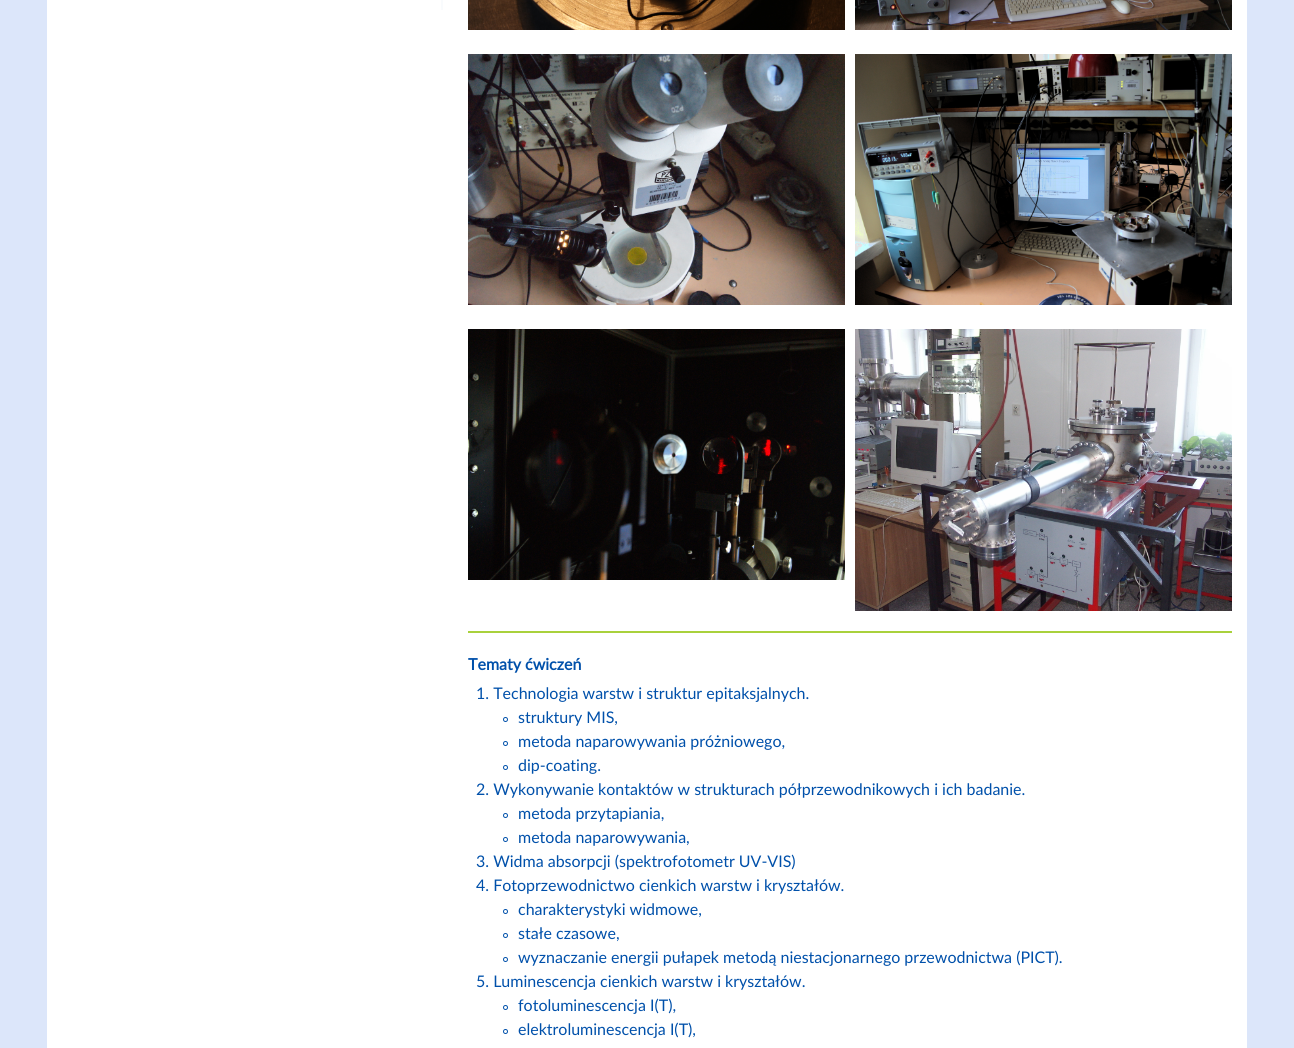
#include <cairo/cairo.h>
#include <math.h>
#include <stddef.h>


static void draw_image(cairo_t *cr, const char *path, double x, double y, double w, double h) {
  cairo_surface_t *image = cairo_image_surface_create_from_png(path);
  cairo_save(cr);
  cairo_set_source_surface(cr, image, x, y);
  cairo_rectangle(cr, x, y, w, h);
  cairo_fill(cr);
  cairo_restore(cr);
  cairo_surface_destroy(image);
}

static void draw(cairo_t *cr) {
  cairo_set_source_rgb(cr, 220 / 255.0, 230 / 255.0, 250 / 255.0);
  cairo_paint(cr);
  cairo_set_source_rgb(cr, 1, 1, 1);
  cairo_rectangle(cr, 47, 0, 1200, 1048);
  cairo_fill(cr);
  draw_image(cr, "images/1.png", 441, 0, 2, 10);
  draw_image(cr, "images/2.png", 468, 0, 377, 30);
  draw_image(cr, "images/3.png", 855, 0, 377, 30);
  draw_image(cr, "images/4.png", 468, 54, 377, 251);
  draw_image(cr, "images/5.png", 855, 54, 377, 251);
  draw_image(cr, "images/6.png", 468, 329, 377, 251);
  draw_image(cr, "images/7.png", 855, 329, 377, 282);
  cairo_set_source_rgb(cr, 169 / 255.0, 209 / 255.0, 60 / 255.0);
  cairo_rectangle(cr, 468, 631, 764, 2);
  cairo_fill(cr);
  cairo_arc(cr, 505.5, 719.5, 2, 0, 2 * M_PI);
  cairo_set_source_rgb(cr, 0, 80 / 255.0, 170 / 255.0);
  cairo_set_line_width(cr, 1);
  cairo_stroke(cr);
  cairo_arc(cr, 505.5, 743.5, 2, 0, 2 * M_PI);
  cairo_stroke(cr);
  cairo_arc(cr, 505.5, 767.5, 2, 0, 2 * M_PI);
  cairo_stroke(cr);
  cairo_arc(cr, 505.5, 815.5, 2, 0, 2 * M_PI);
  cairo_stroke(cr);
  cairo_arc(cr, 505.5, 839.5, 2, 0, 2 * M_PI);
  cairo_stroke(cr);
  cairo_arc(cr, 505.5, 911.5, 2, 0, 2 * M_PI);
  cairo_stroke(cr);
  cairo_arc(cr, 505.5, 935.5, 2, 0, 2 * M_PI);
  cairo_stroke(cr);
  cairo_arc(cr, 505.5, 959.5, 2, 0, 2 * M_PI);
  cairo_stroke(cr);
  cairo_arc(cr, 505.5, 1007.5, 2, 0, 2 * M_PI);
  cairo_stroke(cr);
  cairo_arc(cr, 505.5, 1031.5, 2, 0, 2 * M_PI);
  cairo_stroke(cr);
  cairo_select_font_face(cr, "Lato", CAIRO_FONT_SLANT_NORMAL, CAIRO_FONT_WEIGHT_BOLD);
  cairo_set_font_size(cr, 16);
  cairo_move_to(cr, 468, 670);
  cairo_show_text(cr, "Tematy ćwiczeń");
  cairo_select_font_face(cr, "Lato", CAIRO_FONT_SLANT_NORMAL, CAIRO_FONT_WEIGHT_NORMAL);
  cairo_move_to(cr, 476, 699);
  cairo_show_text(cr, "1. Technologia warstw i struktur epitaksjalnych.");
  cairo_move_to(cr, 518, 723);
  cairo_show_text(cr, "struktury MIS,");
  cairo_move_to(cr, 518, 747);
  cairo_show_text(cr, "metoda naparowywania próżniowego,");
  cairo_move_to(cr, 518, 771);
  cairo_show_text(cr, "dip-coating.");
  cairo_move_to(cr, 476, 795);
  cairo_show_text(cr, "2. Wykonywanie kontaktów w strukturach półprzewodnikowych i ich badanie.");
  cairo_move_to(cr, 518, 819);
  cairo_show_text(cr, "metoda przytapiania,");
  cairo_move_to(cr, 518, 843);
  cairo_show_text(cr, "metoda naparowywania,");
  cairo_move_to(cr, 476, 867);
  cairo_show_text(cr, "3. Widma absorpcji (spektrofotometr UV-VIS)");
  cairo_move_to(cr, 476, 891);
  cairo_show_text(cr, "4. Fotoprzewodnictwo cienkich warstw i kryształów.");
  cairo_move_to(cr, 518, 915);
  cairo_show_text(cr, "charakterystyki widmowe,");
  cairo_move_to(cr, 518, 939);
  cairo_show_text(cr, "stałe czasowe,");
  cairo_move_to(cr, 518, 963);
  cairo_show_text(cr, "wyznaczanie energii pułapek metodą niestacjonarnego przewodnictwa (PICT).");
  cairo_move_to(cr, 476, 987);
  cairo_show_text(cr, "5. Luminescencja cienkich warstw i kryształów.");
  cairo_move_to(cr, 518, 1011);
  cairo_show_text(cr, "fotoluminescencja I(T),");
  cairo_move_to(cr, 518, 1035);
  cairo_show_text(cr, "elektroluminescencja I(T),");
}

int main(void) {
  cairo_surface_t *surface = cairo_image_surface_create(CAIRO_FORMAT_RGB24, 1294, 1048);
  cairo_t *cr = cairo_create(surface);
  cairo_font_options_t *options = cairo_font_options_create();
  cairo_font_options_set_hint_metrics(options, CAIRO_HINT_METRICS_OFF);
  cairo_font_options_set_hint_style(options, CAIRO_HINT_STYLE_NONE);
  cairo_set_font_options(cr, options);
  cairo_set_miter_limit(cr, 4);
  draw(cr);
  cairo_surface_write_to_png(surface, "out.png");
  cairo_font_options_destroy(options);
  cairo_destroy(cr);
  cairo_surface_destroy(surface);
  return 0;
}
